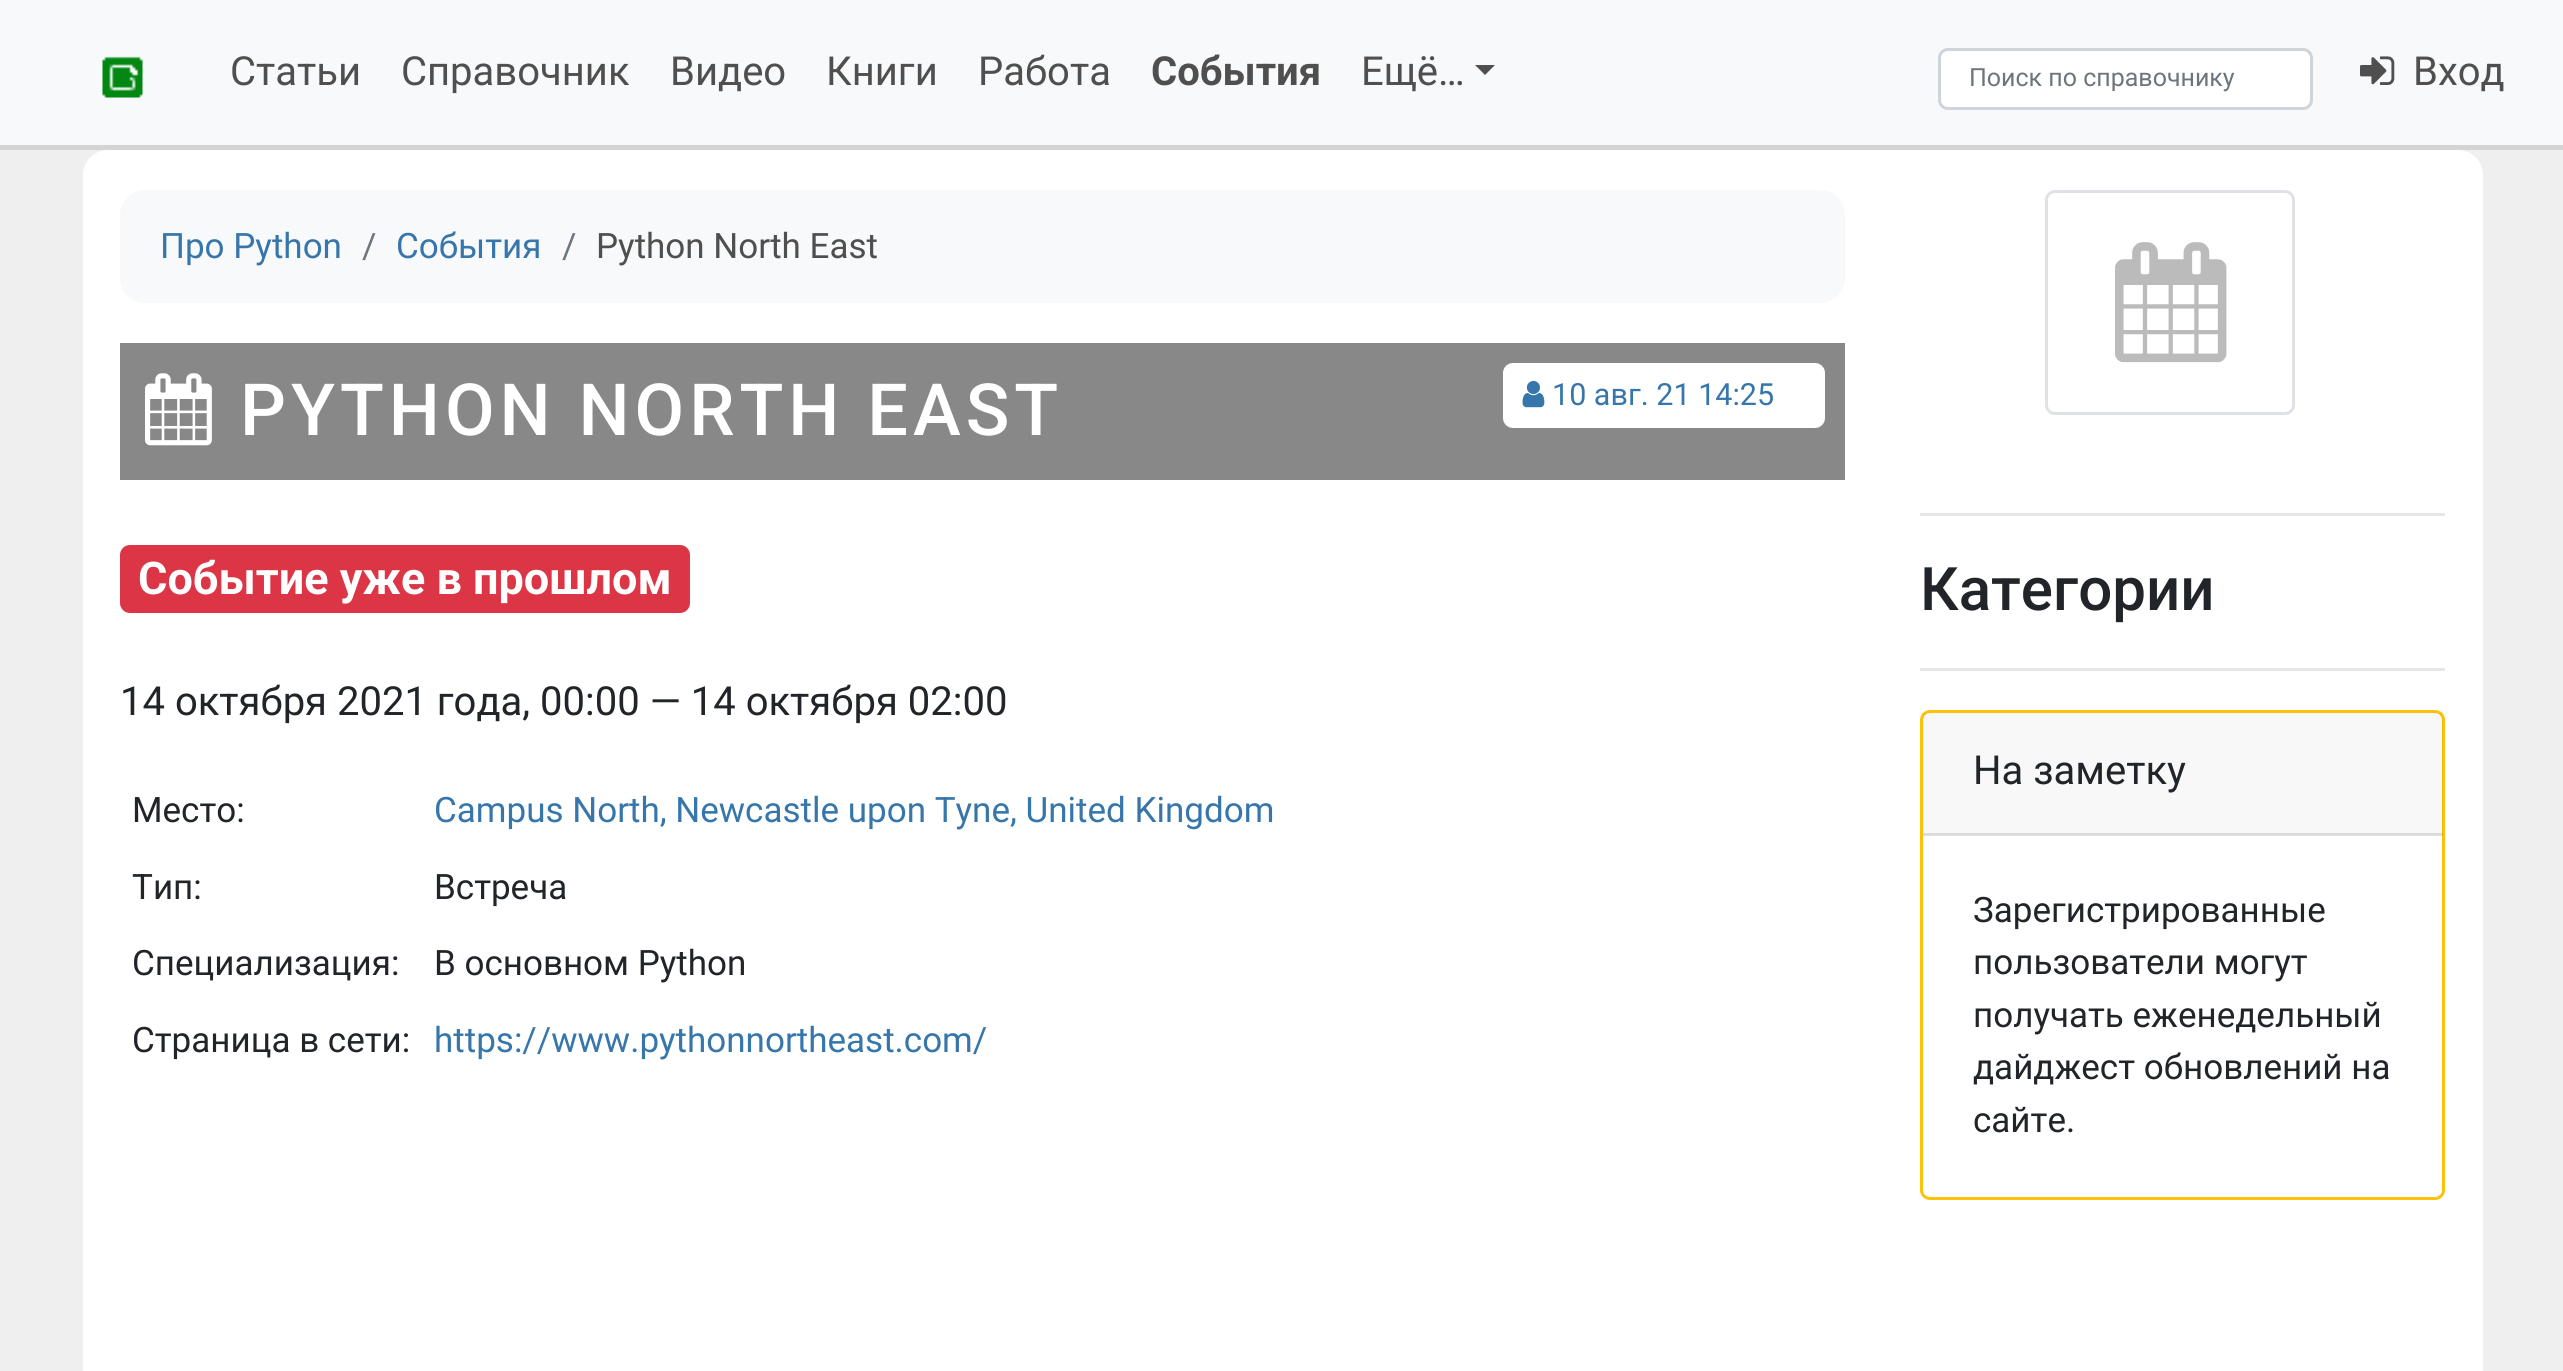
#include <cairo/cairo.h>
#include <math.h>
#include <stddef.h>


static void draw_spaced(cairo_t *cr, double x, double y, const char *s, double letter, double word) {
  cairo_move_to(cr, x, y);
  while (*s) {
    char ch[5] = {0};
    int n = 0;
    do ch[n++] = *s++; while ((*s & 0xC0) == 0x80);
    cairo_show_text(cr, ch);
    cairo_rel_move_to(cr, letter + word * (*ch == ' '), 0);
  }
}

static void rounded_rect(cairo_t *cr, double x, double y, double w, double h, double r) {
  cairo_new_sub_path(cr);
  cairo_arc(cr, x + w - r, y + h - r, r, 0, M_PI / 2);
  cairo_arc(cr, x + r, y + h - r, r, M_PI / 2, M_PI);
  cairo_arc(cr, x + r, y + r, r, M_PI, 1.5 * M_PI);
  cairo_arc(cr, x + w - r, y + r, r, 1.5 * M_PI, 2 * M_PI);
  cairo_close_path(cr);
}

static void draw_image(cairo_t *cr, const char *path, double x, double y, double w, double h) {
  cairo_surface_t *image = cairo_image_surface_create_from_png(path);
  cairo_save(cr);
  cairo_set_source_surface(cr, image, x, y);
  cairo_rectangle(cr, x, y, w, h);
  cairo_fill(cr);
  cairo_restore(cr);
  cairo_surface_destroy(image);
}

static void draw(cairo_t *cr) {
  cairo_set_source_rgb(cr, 239 / 255.0, 239 / 255.0, 239 / 255.0);
  cairo_paint(cr);
  cairo_set_source_rgb(cr, 248 / 255.0, 249 / 255.0, 250 / 255.0);
  cairo_rectangle(cr, 0, 0, 2563, 145);
  cairo_fill(cr);
  cairo_set_source_rgb(cr, 212 / 255.0, 212 / 255.0, 212 / 255.0);
  cairo_rectangle(cr, 0, 145, 2563, 5);
  cairo_fill(cr);
  draw_image(cr, "images/1.png", 102, 56, 41, 42);
  cairo_set_source_rgb(cr, 79 / 255.0, 79 / 255.0, 79 / 255.0);
  cairo_new_path(cr);
  cairo_move_to(cr, 1475, 65);
  cairo_line_to(cr, 1495, 65);
  cairo_line_to(cr, 1485, 75);
  cairo_close_path(cr);
  cairo_fill(cr);
  cairo_set_source_rgb(cr, 1, 1, 1);
  rounded_rect(cr, 1939.5, 49.5, 372, 59, 8.5);
  cairo_fill_preserve(cr);
  cairo_set_source_rgb(cr, 206 / 255.0, 212 / 255.0, 218 / 255.0);
  cairo_set_line_width(cr, 3);
  cairo_stroke(cr);
  draw_image(cr, "images/2.png", 2360, 56, 35, 29);
  cairo_set_source_rgb(cr, 1, 1, 1);
  rounded_rect(cr, 83, 150, 2400, 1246, 25);
  cairo_fill(cr);
  cairo_set_source_rgb(cr, 248 / 255.0, 249 / 255.0, 250 / 255.0);
  rounded_rect(cr, 120, 190, 1725, 113, 25);
  cairo_fill(cr);
  cairo_set_source_rgb(cr, 136 / 255.0, 136 / 255.0, 136 / 255.0);
  cairo_rectangle(cr, 120, 343, 1725, 137);
  cairo_fill(cr);
  draw_image(cr, "images/3.png", 145, 373, 67, 73);
  cairo_set_source_rgb(cr, 1, 1, 1);
  rounded_rect(cr, 1503, 363, 322, 65, 10);
  cairo_fill(cr);
  draw_image(cr, "images/4.png", 1522, 380, 23, 28);
  cairo_set_source_rgb(cr, 220 / 255.0, 53 / 255.0, 69 / 255.0);
  rounded_rect(cr, 120, 545, 570, 68, 10);
  cairo_fill(cr);
  rounded_rect(cr, 2046.5, 191.5, 247, 222, 8.5);
  cairo_set_source_rgb(cr, 222 / 255.0, 226 / 255.0, 230 / 255.0);
  cairo_stroke(cr);
  draw_image(cr, "images/5.png", 2115, 242, 112, 121);
  cairo_set_source_rgb(cr, 230 / 255.0, 230 / 255.0, 230 / 255.0);
  cairo_rectangle(cr, 1920, 513, 525, 3);
  cairo_fill(cr);
  cairo_rectangle(cr, 1920, 668, 525, 3);
  cairo_fill(cr);
  rounded_rect(cr, 1921.5, 711.5, 522, 487, 8.5);
  cairo_set_source_rgb(cr, 1, 193 / 255.0, 7 / 255.0);
  cairo_stroke(cr);
  cairo_set_source_rgba(cr, 0, 0, 0, 0.03);
  cairo_rectangle(cr, 1923, 713, 520, 122);
  cairo_fill(cr);
  cairo_set_source_rgba(cr, 0, 0, 0, 0.12);
  cairo_rectangle(cr, 1923, 833, 520, 3);
  cairo_fill(cr);
  cairo_select_font_face(cr, "Roboto", CAIRO_FONT_SLANT_NORMAL, CAIRO_FONT_WEIGHT_NORMAL);
  cairo_set_font_size(cr, 40);
  cairo_set_source_rgb(cr, 79 / 255.0, 79 / 255.0, 79 / 255.0);
  cairo_move_to(cr, 230, 85);
  cairo_show_text(cr, "Статьи");
  cairo_move_to(cr, 401, 85);
  cairo_show_text(cr, "Справочник");
  cairo_move_to(cr, 670, 85);
  cairo_show_text(cr, "Видео");
  cairo_move_to(cr, 826, 85);
  cairo_show_text(cr, "Книги");
  cairo_move_to(cr, 978, 85);
  cairo_show_text(cr, "Работа");
  cairo_select_font_face(cr, "Roboto", CAIRO_FONT_SLANT_NORMAL, CAIRO_FONT_WEIGHT_BOLD);
  cairo_move_to(cr, 1151, 85);
  cairo_show_text(cr, "События");
  cairo_select_font_face(cr, "Roboto", CAIRO_FONT_SLANT_NORMAL, CAIRO_FONT_WEIGHT_NORMAL);
  cairo_move_to(cr, 1361, 85);
  cairo_show_text(cr, "Ещё…");
  cairo_set_font_size(cr, 25);
  cairo_set_source_rgb(cr, 108 / 255.0, 117 / 255.0, 125 / 255.0);
  cairo_move_to(cr, 1969, 86);
  cairo_show_text(cr, "Поиск по справочнику");
  cairo_set_font_size(cr, 40);
  cairo_set_source_rgb(cr, 79 / 255.0, 79 / 255.0, 79 / 255.0);
  cairo_move_to(cr, 2413, 85);
  cairo_show_text(cr, "Вход");
  cairo_set_font_size(cr, 35);
  cairo_set_source_rgb(cr, 55 / 255.0, 118 / 255.0, 171 / 255.0);
  cairo_move_to(cr, 160, 258);
  cairo_show_text(cr, "Про Python");
  cairo_set_source_rgb(cr, 108 / 255.0, 117 / 255.0, 125 / 255.0);
  cairo_move_to(cr, 362, 258);
  cairo_show_text(cr, "/");
  cairo_set_source_rgb(cr, 55 / 255.0, 118 / 255.0, 171 / 255.0);
  cairo_move_to(cr, 396, 258);
  cairo_show_text(cr, "События");
  cairo_set_source_rgb(cr, 108 / 255.0, 117 / 255.0, 125 / 255.0);
  cairo_move_to(cr, 562, 258);
  cairo_show_text(cr, "/");
  cairo_set_source_rgb(cr, 79 / 255.0, 79 / 255.0, 79 / 255.0);
  cairo_move_to(cr, 596, 258);
  cairo_show_text(cr, "Python North East");
  cairo_select_font_face(cr, "Roboto Medium", CAIRO_FONT_SLANT_NORMAL, CAIRO_FONT_WEIGHT_NORMAL);
  cairo_set_font_size(cr, 72);
  cairo_set_source_rgb(cr, 1, 1, 1);
  draw_spaced(cr, 240, 435, "PYTHON NORTH EAST", 5, 0);
  cairo_select_font_face(cr, "Roboto", CAIRO_FONT_SLANT_NORMAL, CAIRO_FONT_WEIGHT_NORMAL);
  cairo_set_font_size(cr, 30.5);
  cairo_set_source_rgb(cr, 55 / 255.0, 118 / 255.0, 171 / 255.0);
  cairo_move_to(cr, 1552, 405);
  cairo_show_text(cr, "10 авг. 21 14:25");
  cairo_select_font_face(cr, "Roboto", CAIRO_FONT_SLANT_NORMAL, CAIRO_FONT_WEIGHT_BOLD);
  cairo_set_font_size(cr, 45);
  cairo_set_source_rgb(cr, 1, 1, 1);
  cairo_move_to(cr, 138, 594);
  cairo_show_text(cr, "Событие уже в прошлом");
  cairo_select_font_face(cr, "Roboto", CAIRO_FONT_SLANT_NORMAL, CAIRO_FONT_WEIGHT_NORMAL);
  cairo_set_font_size(cr, 40);
  cairo_set_source_rgb(cr, 33 / 255.0, 37 / 255.0, 41 / 255.0);
  cairo_move_to(cr, 120, 715);
  cairo_show_text(cr, "14 октября 2021 года, 00:00 — 14 октября 02:00");
  cairo_set_font_size(cr, 35);
  cairo_move_to(cr, 132, 822);
  cairo_show_text(cr, "Место:");
  cairo_set_source_rgb(cr, 55 / 255.0, 118 / 255.0, 171 / 255.0);
  cairo_move_to(cr, 434, 822);
  cairo_show_text(cr, "Campus North, Newcastle upon Tyne, United Kingdom");
  cairo_set_source_rgb(cr, 33 / 255.0, 37 / 255.0, 41 / 255.0);
  cairo_move_to(cr, 132, 899);
  cairo_show_text(cr, "Тип:");
  cairo_move_to(cr, 434, 899);
  cairo_show_text(cr, "Встреча");
  cairo_move_to(cr, 132, 975);
  cairo_show_text(cr, "Специализация:");
  cairo_move_to(cr, 434, 975);
  cairo_show_text(cr, "В основном Python");
  cairo_move_to(cr, 132, 1052);
  cairo_show_text(cr, "Страница в сети:");
  cairo_set_source_rgb(cr, 55 / 255.0, 118 / 255.0, 171 / 255.0);
  cairo_move_to(cr, 434, 1052);
  cairo_show_text(cr, "https://www.pythonnortheast.com/");
  cairo_select_font_face(cr, "Roboto Medium", CAIRO_FONT_SLANT_NORMAL, CAIRO_FONT_WEIGHT_NORMAL);
  cairo_set_font_size(cr, 60);
  cairo_set_source_rgb(cr, 33 / 255.0, 37 / 255.0, 41 / 255.0);
  cairo_move_to(cr, 1920, 610);
  cairo_show_text(cr, "Категории");
  cairo_select_font_face(cr, "Roboto", CAIRO_FONT_SLANT_NORMAL, CAIRO_FONT_WEIGHT_NORMAL);
  cairo_set_font_size(cr, 40);
  cairo_move_to(cr, 1973, 784);
  cairo_show_text(cr, "На заметку");
  cairo_set_font_size(cr, 35);
  cairo_move_to(cr, 1973, 922);
  cairo_show_text(cr, "Зарегистрированные");
  cairo_move_to(cr, 1973, 974);
  cairo_show_text(cr, "пользователи могут");
  cairo_move_to(cr, 1973, 1027);
  cairo_show_text(cr, "получать еженедельный");
  cairo_move_to(cr, 1973, 1079);
  cairo_show_text(cr, "дайджест обновлений на");
  cairo_move_to(cr, 1973, 1132);
  cairo_show_text(cr, "сайте.");
}

int main(void) {
  cairo_surface_t *surface = cairo_image_surface_create(CAIRO_FORMAT_RGB24, 2563, 1371);
  cairo_t *cr = cairo_create(surface);
  cairo_font_options_t *options = cairo_font_options_create();
  cairo_font_options_set_hint_metrics(options, CAIRO_HINT_METRICS_OFF);
  cairo_font_options_set_hint_style(options, CAIRO_HINT_STYLE_NONE);
  cairo_set_font_options(cr, options);
  cairo_set_miter_limit(cr, 4);
  draw(cr);
  cairo_surface_write_to_png(surface, "out.png");
  cairo_font_options_destroy(options);
  cairo_destroy(cr);
  cairo_surface_destroy(surface);
  return 0;
}
